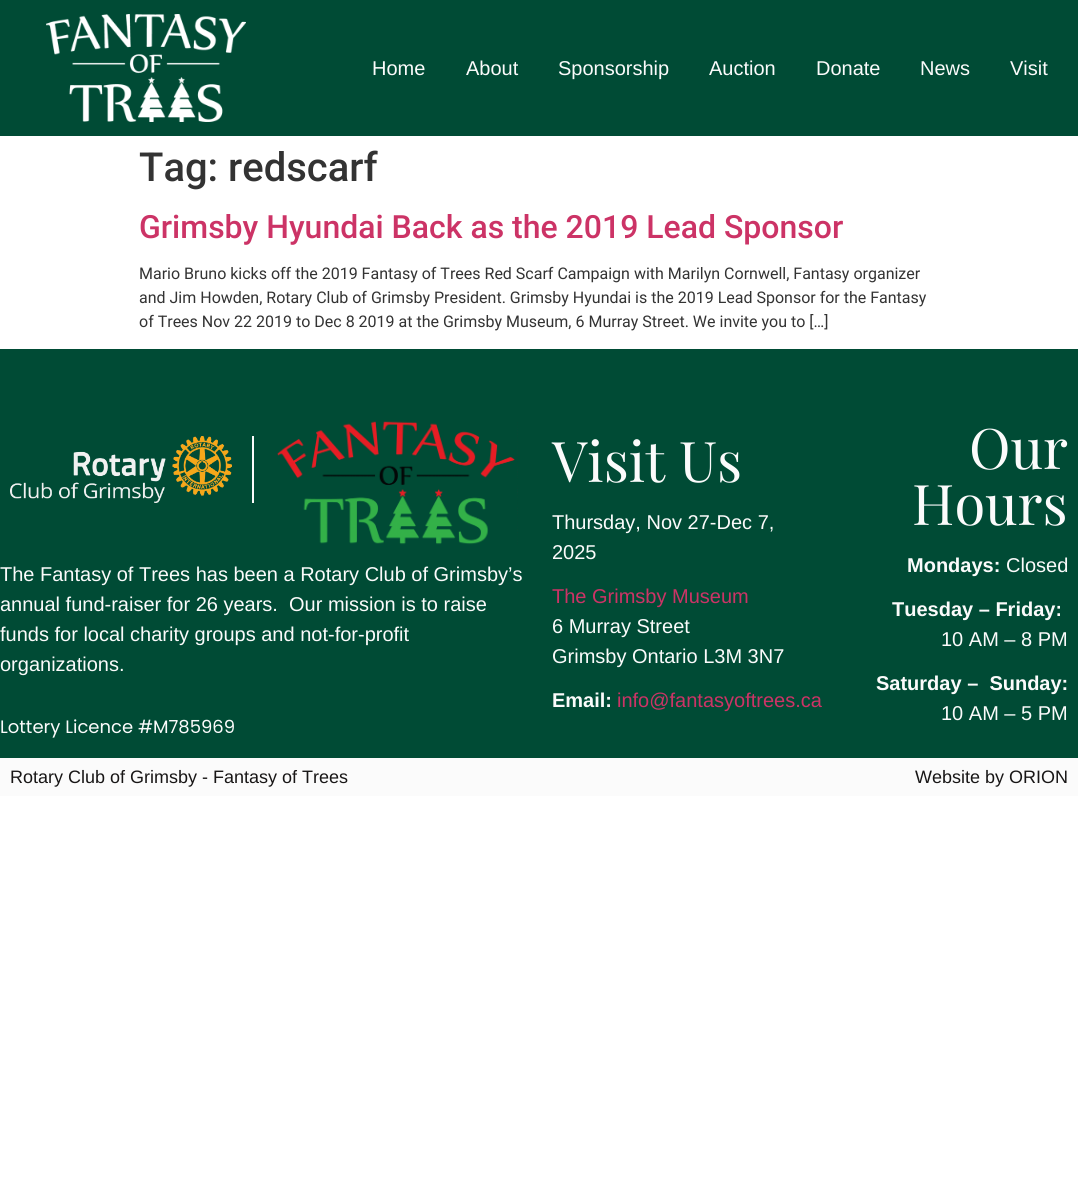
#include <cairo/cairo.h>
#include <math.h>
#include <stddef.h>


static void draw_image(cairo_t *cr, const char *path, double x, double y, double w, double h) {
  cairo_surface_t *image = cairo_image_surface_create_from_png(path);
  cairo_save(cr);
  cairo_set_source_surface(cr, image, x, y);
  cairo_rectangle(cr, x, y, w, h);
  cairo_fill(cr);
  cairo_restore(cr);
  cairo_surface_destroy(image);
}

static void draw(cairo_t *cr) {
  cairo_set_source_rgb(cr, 1, 1, 1);
  cairo_paint(cr);
  cairo_set_source_rgb(cr, 0, 75 / 255.0, 53 / 255.0);
  cairo_rectangle(cr, 0, 0, 1078, 136);
  cairo_fill(cr);
  draw_image(cr, "images/1.png", 46, 14, 200, 108);
  cairo_rectangle(cr, 0, 349, 1078, 409);
  cairo_fill(cr);
  cairo_set_source_rgb(cr, 251 / 255.0, 251 / 255.0, 251 / 255.0);
  cairo_rectangle(cr, 252, 436, 2, 67);
  cairo_fill(cr);
  draw_image(cr, "images/2.png", 10, 436, 222, 67);
  draw_image(cr, "images/3.png", 277, 421, 241, 124);
  cairo_rectangle(cr, 0, 758, 1078, 38);
  cairo_fill(cr);
  cairo_select_font_face(cr, "Liberation Sans", CAIRO_FONT_SLANT_NORMAL, CAIRO_FONT_WEIGHT_NORMAL);
  cairo_set_font_size(cr, 20);
  cairo_move_to(cr, 372, 75);
  cairo_show_text(cr, "Home");
  cairo_move_to(cr, 466, 75);
  cairo_show_text(cr, "About");
  cairo_move_to(cr, 558, 75);
  cairo_show_text(cr, "Sponsorship");
  cairo_move_to(cr, 709, 75);
  cairo_show_text(cr, "Auction");
  cairo_move_to(cr, 816, 75);
  cairo_show_text(cr, "Donate");
  cairo_move_to(cr, 920, 75);
  cairo_show_text(cr, "News");
  cairo_move_to(cr, 1010, 75);
  cairo_show_text(cr, "Visit");
  cairo_select_font_face(cr, "Roboto Medium", CAIRO_FONT_SLANT_NORMAL, CAIRO_FONT_WEIGHT_NORMAL);
  cairo_set_font_size(cr, 40);
  cairo_set_source_rgb(cr, 51 / 255.0, 51 / 255.0, 51 / 255.0);
  cairo_move_to(cr, 139, 181);
  cairo_show_text(cr, "Tag: redscarf");
  cairo_set_font_size(cr, 32);
  cairo_set_source_rgb(cr, 204 / 255.0, 51 / 255.0, 102 / 255.0);
  cairo_move_to(cr, 139, 238);
  cairo_show_text(cr, "Grimsby Hyundai Back as the 2019 Lead Sponsor");
  cairo_select_font_face(cr, "Roboto", CAIRO_FONT_SLANT_NORMAL, CAIRO_FONT_WEIGHT_NORMAL);
  cairo_set_font_size(cr, 16);
  cairo_set_source_rgb(cr, 51 / 255.0, 51 / 255.0, 51 / 255.0);
  cairo_move_to(cr, 139, 279);
  cairo_show_text(cr, "Mario Bruno kicks off the 2019 Fantasy of Trees Red Scarf Campaign with Marilyn Cornwell, Fantasy organizer");
  cairo_move_to(cr, 139, 303);
  cairo_show_text(cr, "and Jim Howden, Rotary Club of Grimsby President. Grimsby Hyundai is the 2019 Lead Sponsor for the Fantasy");
  cairo_move_to(cr, 139, 327);
  cairo_show_text(cr, "of Trees Nov 22 2019 to Dec 8 2019 at the Grimsby Museum, 6 Murray Street. We invite you to […]");
  cairo_select_font_face(cr, "Liberation Sans", CAIRO_FONT_SLANT_NORMAL, CAIRO_FONT_WEIGHT_NORMAL);
  cairo_set_font_size(cr, 20);
  cairo_set_source_rgb(cr, 251 / 255.0, 251 / 255.0, 251 / 255.0);
  cairo_move_to(cr, 0, 581);
  cairo_show_text(cr, "The Fantasy of Trees has been a Rotary Club of Grimsby’s");
  cairo_move_to(cr, 0, 611);
  cairo_show_text(cr, "annual fund-raiser for 26 years.  Our mission is to raise");
  cairo_move_to(cr, 0, 641);
  cairo_show_text(cr, "funds for local charity groups and not-for-profit");
  cairo_move_to(cr, 0, 671);
  cairo_show_text(cr, "organizations.");
  cairo_select_font_face(cr, "Poppins", CAIRO_FONT_SLANT_NORMAL, CAIRO_FONT_WEIGHT_NORMAL);
  cairo_set_font_size(cr, 18);
  cairo_move_to(cr, 0, 733);
  cairo_show_text(cr, "Lottery Licence #M785969");
  cairo_select_font_face(cr, "Playfair Display", CAIRO_FONT_SLANT_NORMAL, CAIRO_FONT_WEIGHT_NORMAL);
  cairo_set_font_size(cr, 56);
  cairo_move_to(cr, 552, 482);
  cairo_show_text(cr, "Visit Us");
  cairo_select_font_face(cr, "Liberation Sans", CAIRO_FONT_SLANT_NORMAL, CAIRO_FONT_WEIGHT_NORMAL);
  cairo_set_font_size(cr, 20);
  cairo_move_to(cr, 552, 529);
  cairo_show_text(cr, "Thursday, Nov 27-Dec 7,");
  cairo_move_to(cr, 552, 559);
  cairo_show_text(cr, "2025");
  cairo_set_source_rgb(cr, 204 / 255.0, 51 / 255.0, 102 / 255.0);
  cairo_move_to(cr, 552, 603);
  cairo_show_text(cr, "The Grimsby Museum");
  cairo_set_source_rgb(cr, 251 / 255.0, 251 / 255.0, 251 / 255.0);
  cairo_move_to(cr, 552, 633);
  cairo_show_text(cr, "6 Murray Street");
  cairo_move_to(cr, 552, 663);
  cairo_show_text(cr, "Grimsby Ontario L3M 3N7");
  cairo_select_font_face(cr, "Liberation Sans", CAIRO_FONT_SLANT_NORMAL, CAIRO_FONT_WEIGHT_BOLD);
  cairo_move_to(cr, 552, 707);
  cairo_show_text(cr, "Email:");
  cairo_select_font_face(cr, "Liberation Sans", CAIRO_FONT_SLANT_NORMAL, CAIRO_FONT_WEIGHT_NORMAL);
  cairo_set_source_rgb(cr, 204 / 255.0, 51 / 255.0, 102 / 255.0);
  cairo_move_to(cr, 617, 707);
  cairo_show_text(cr, "info@fantasyoftrees.ca");
  cairo_select_font_face(cr, "Playfair Display", CAIRO_FONT_SLANT_NORMAL, CAIRO_FONT_WEIGHT_NORMAL);
  cairo_set_font_size(cr, 56);
  cairo_set_source_rgb(cr, 251 / 255.0, 251 / 255.0, 251 / 255.0);
  cairo_move_to(cr, 969, 469);
  cairo_show_text(cr, "Our");
  cairo_move_to(cr, 912, 525);
  cairo_show_text(cr, "Hours");
  cairo_select_font_face(cr, "Liberation Sans", CAIRO_FONT_SLANT_NORMAL, CAIRO_FONT_WEIGHT_BOLD);
  cairo_set_font_size(cr, 20);
  cairo_move_to(cr, 907, 572);
  cairo_show_text(cr, "Mondays:");
  cairo_select_font_face(cr, "Liberation Sans", CAIRO_FONT_SLANT_NORMAL, CAIRO_FONT_WEIGHT_NORMAL);
  cairo_move_to(cr, 1006, 572);
  cairo_show_text(cr, "Closed");
  cairo_select_font_face(cr, "Liberation Sans", CAIRO_FONT_SLANT_NORMAL, CAIRO_FONT_WEIGHT_BOLD);
  cairo_move_to(cr, 892, 616);
  cairo_show_text(cr, "Tuesday – Friday:");
  cairo_select_font_face(cr, "Liberation Sans", CAIRO_FONT_SLANT_NORMAL, CAIRO_FONT_WEIGHT_NORMAL);
  cairo_move_to(cr, 941, 646);
  cairo_show_text(cr, "10 AM – 8 PM");
  cairo_select_font_face(cr, "Liberation Sans", CAIRO_FONT_SLANT_NORMAL, CAIRO_FONT_WEIGHT_BOLD);
  cairo_move_to(cr, 876, 690);
  cairo_show_text(cr, "Saturday –  Sunday:");
  cairo_select_font_face(cr, "Liberation Sans", CAIRO_FONT_SLANT_NORMAL, CAIRO_FONT_WEIGHT_NORMAL);
  cairo_move_to(cr, 941, 720);
  cairo_show_text(cr, "10 AM – 5 PM");
  cairo_set_font_size(cr, 18);
  cairo_set_source_rgb(cr, 24 / 255.0, 22 / 255.0, 22 / 255.0);
  cairo_move_to(cr, 10, 783);
  cairo_show_text(cr, "Rotary Club of Grimsby - Fantasy of Trees");
  cairo_move_to(cr, 915, 783);
  cairo_show_text(cr, "Website by ORION");
}

int main(void) {
  cairo_surface_t *surface = cairo_image_surface_create(CAIRO_FORMAT_RGB24, 1078, 1184);
  cairo_t *cr = cairo_create(surface);
  cairo_font_options_t *options = cairo_font_options_create();
  cairo_font_options_set_hint_metrics(options, CAIRO_HINT_METRICS_OFF);
  cairo_font_options_set_hint_style(options, CAIRO_HINT_STYLE_NONE);
  cairo_set_font_options(cr, options);
  cairo_set_miter_limit(cr, 4);
  draw(cr);
  cairo_surface_write_to_png(surface, "out.png");
  cairo_font_options_destroy(options);
  cairo_destroy(cr);
  cairo_surface_destroy(surface);
  return 0;
}
